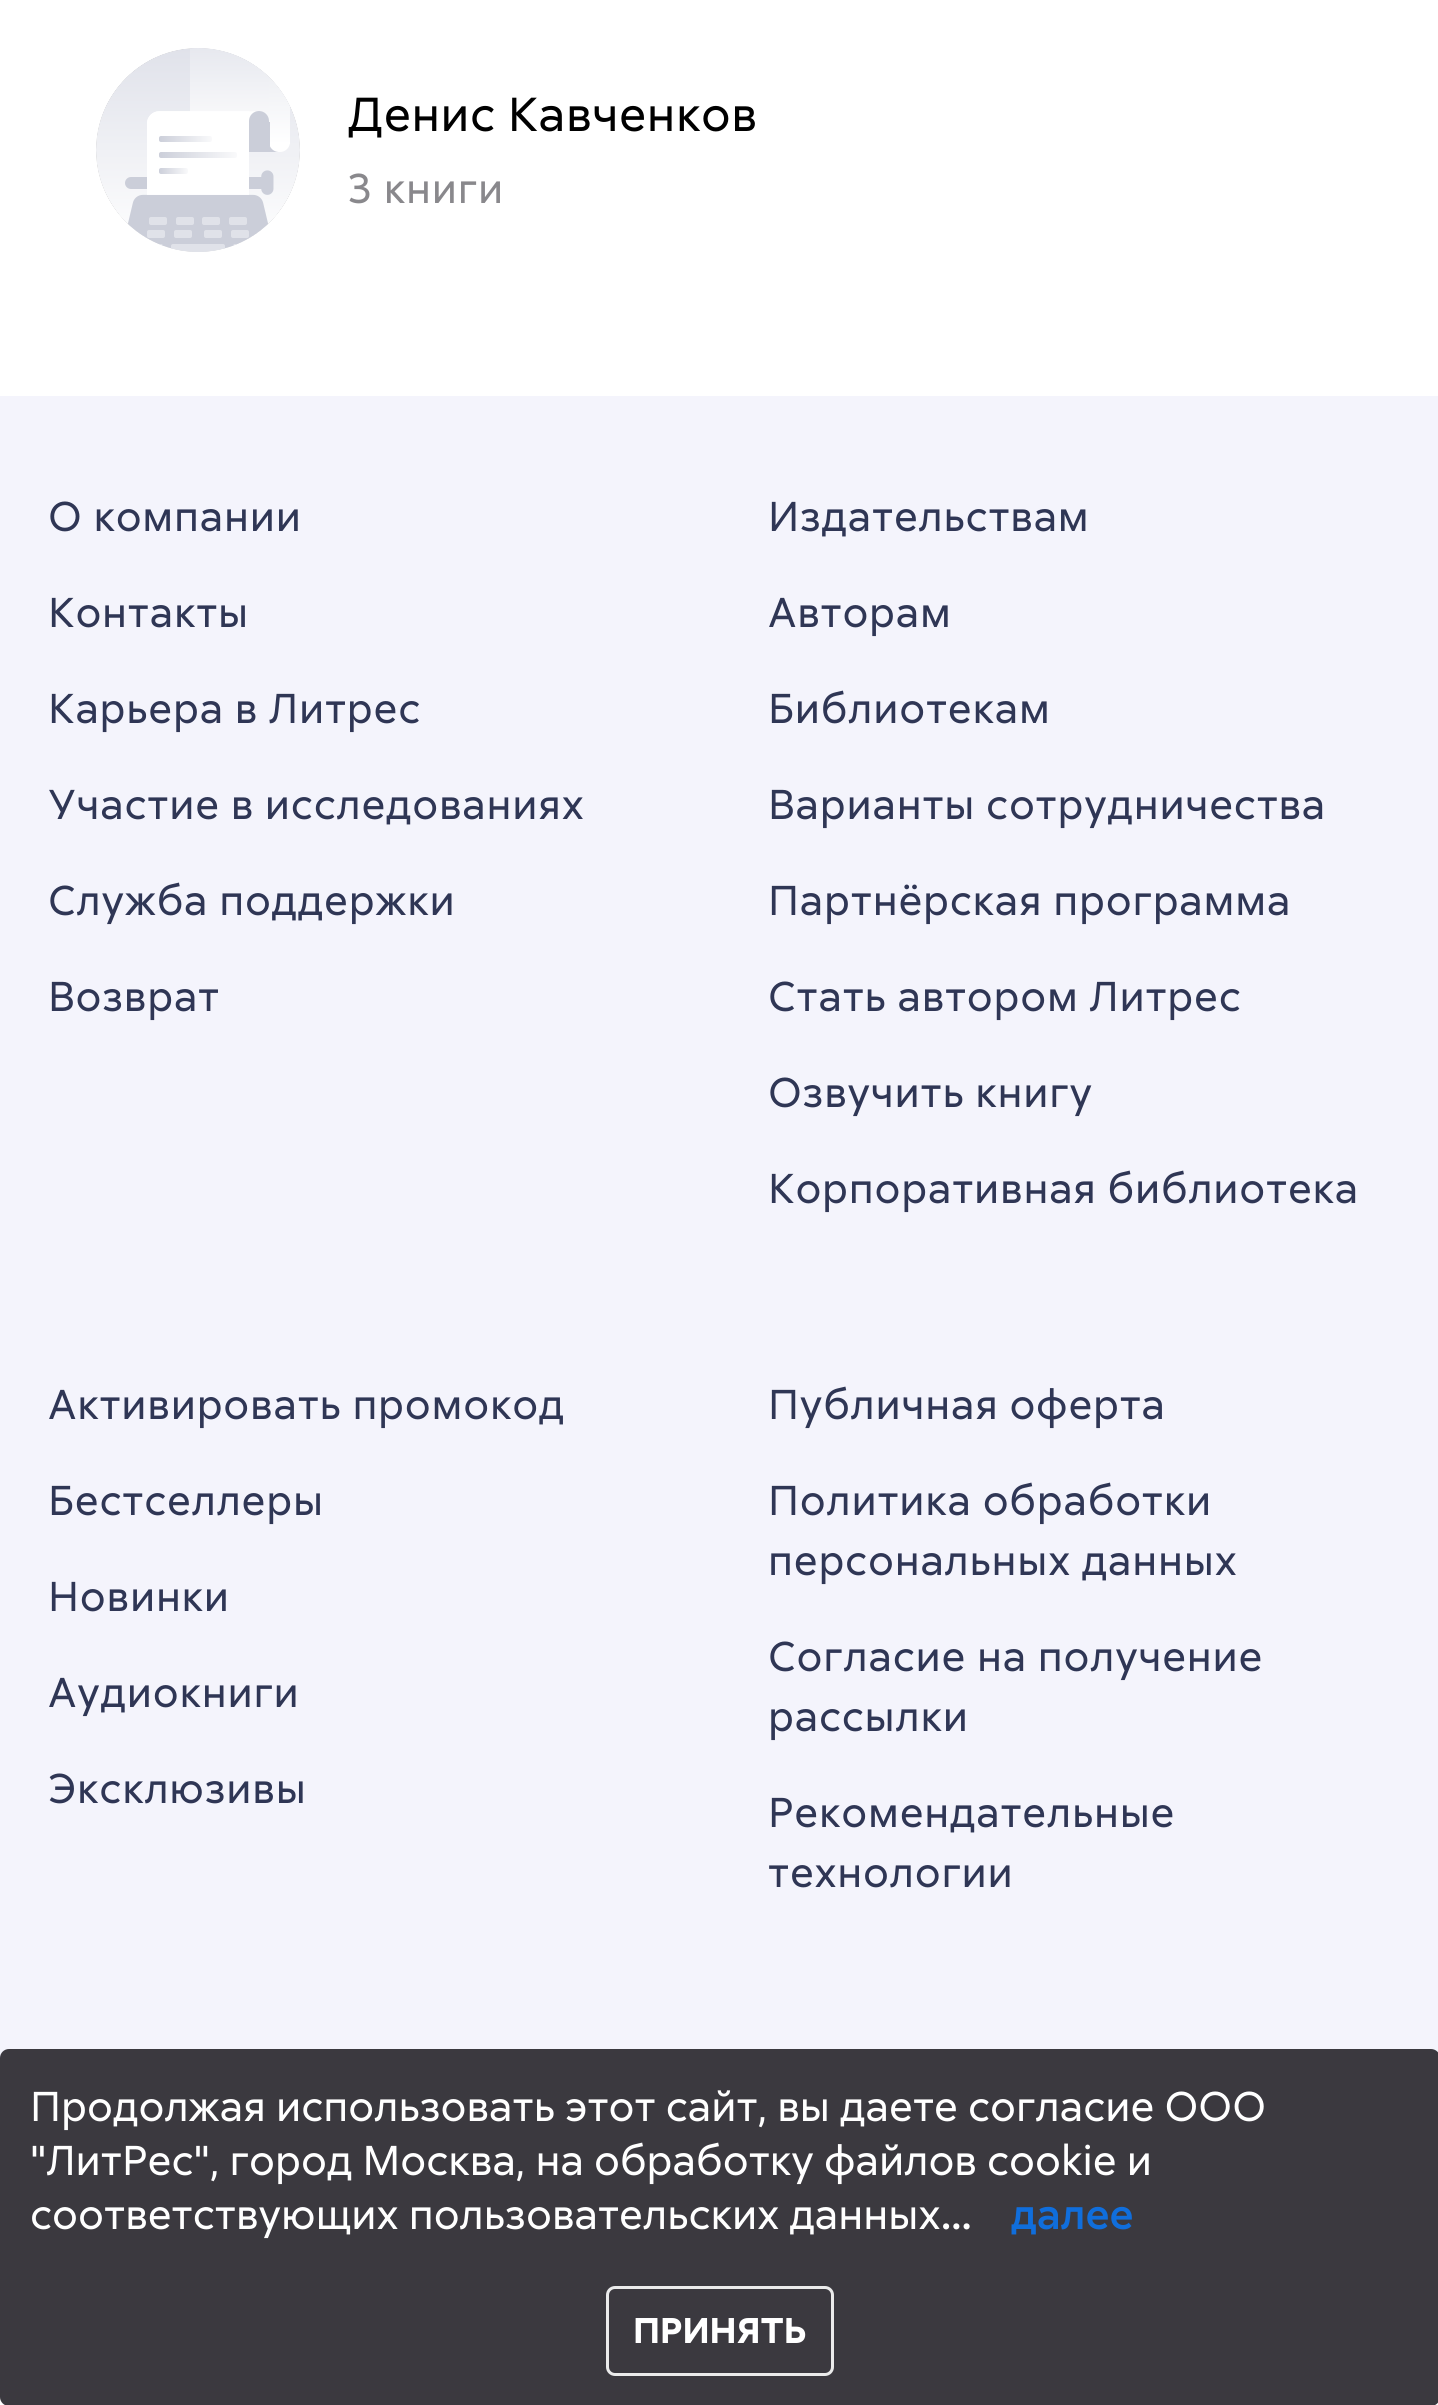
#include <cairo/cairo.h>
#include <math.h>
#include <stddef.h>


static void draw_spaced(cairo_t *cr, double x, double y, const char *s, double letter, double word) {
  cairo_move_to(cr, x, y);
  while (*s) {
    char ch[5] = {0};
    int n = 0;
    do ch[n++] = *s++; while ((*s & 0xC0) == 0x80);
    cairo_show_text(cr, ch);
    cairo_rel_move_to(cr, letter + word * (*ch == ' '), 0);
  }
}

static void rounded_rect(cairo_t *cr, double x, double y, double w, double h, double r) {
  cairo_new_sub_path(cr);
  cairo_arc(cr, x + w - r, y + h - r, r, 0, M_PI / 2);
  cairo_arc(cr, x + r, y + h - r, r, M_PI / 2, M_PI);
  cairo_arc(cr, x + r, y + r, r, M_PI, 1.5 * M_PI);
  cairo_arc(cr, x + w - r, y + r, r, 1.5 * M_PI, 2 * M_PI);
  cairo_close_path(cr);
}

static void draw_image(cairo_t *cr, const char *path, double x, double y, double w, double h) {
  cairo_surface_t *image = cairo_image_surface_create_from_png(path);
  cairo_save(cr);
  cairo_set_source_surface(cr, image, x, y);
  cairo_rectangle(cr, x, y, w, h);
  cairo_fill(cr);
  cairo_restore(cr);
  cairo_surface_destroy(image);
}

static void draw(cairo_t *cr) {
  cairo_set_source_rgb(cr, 1, 1, 1);
  cairo_paint(cr);
  draw_image(cr, "images/1.png", 96, 48, 204, 204);
  cairo_set_source_rgb(cr, 244 / 255.0, 244 / 255.0, 252 / 255.0);
  cairo_rectangle(cr, 0, 396, 1438, 1662);
  cairo_fill(cr);
  cairo_set_source_rgb(cr, 59 / 255.0, 57 / 255.0, 63 / 255.0);
  rounded_rect(cr, 0, 2049, 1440, 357, 9);
  cairo_fill(cr);
  rounded_rect(cr, 607.5, 2287.5, 225, 87, 7.5);
  cairo_set_source_rgb(cr, 235 / 255.0, 235 / 255.0, 235 / 255.0);
  cairo_set_line_width(cr, 3);
  cairo_stroke(cr);
  cairo_select_font_face(cr, "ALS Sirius", CAIRO_FONT_SLANT_NORMAL, CAIRO_FONT_WEIGHT_NORMAL);
  cairo_set_font_size(cr, 48);
  cairo_set_source_rgb(cr, 0, 0, 0);
  draw_spaced(cr, 348, 131, "Денис Кавченков", 0.5, 0);
  cairo_set_font_size(cr, 42);
  cairo_set_source_rgb(cr, 137 / 255.0, 136 / 255.0, 140 / 255.0);
  draw_spaced(cr, 348, 203, "3 книги", 0.75, 0);
  cairo_set_source_rgb(cr, 47 / 255.0, 54 / 255.0, 85 / 255.0);
  draw_spaced(cr, 48, 531, "О компании", 0.75, 0);
  draw_spaced(cr, 48, 627, "Контакты", 0.75, 0);
  draw_spaced(cr, 48, 723, "Карьера в Литрес", 0.75, 0);
  draw_spaced(cr, 48, 819, "Участие в исследованиях", 0.75, 0);
  draw_spaced(cr, 48, 915, "Служба поддержки", 0.75, 0);
  draw_spaced(cr, 48, 1011, "Возврат", 0.75, 0);
  draw_spaced(cr, 768, 531, "Издательствам", 0.75, 0);
  draw_spaced(cr, 768, 627, "Авторам", 0.75, 0);
  draw_spaced(cr, 768, 723, "Библиотекам", 0.75, 0);
  draw_spaced(cr, 768, 819, "Варианты сотрудничества", 0.75, 0);
  draw_spaced(cr, 768, 915, "Партнёрская программа", 0.75, 0);
  draw_spaced(cr, 768, 1011, "Стать автором Литрес", 0.75, 0);
  draw_spaced(cr, 768, 1107, "Озвучить книгу", 0.75, 0);
  draw_spaced(cr, 768, 1203, "Корпоративная библиотека", 0.75, 0);
  draw_spaced(cr, 48, 1419, "Активировать промокод", 0.75, 0);
  draw_spaced(cr, 48, 1515, "Бестселлеры", 0.75, 0);
  draw_spaced(cr, 48, 1611, "Новинки", 0.75, 0);
  draw_spaced(cr, 48, 1707, "Аудиокниги", 0.75, 0);
  draw_spaced(cr, 48, 1803, "Эксклюзивы", 0.75, 0);
  draw_spaced(cr, 768, 1419, "Публичная оферта", 0.75, 0);
  draw_spaced(cr, 768, 1515, "Политика обработки", 0.75, 0);
  draw_spaced(cr, 768, 1575, "персональных данных", 0.75, 0);
  draw_spaced(cr, 768, 1671, "Согласие на получение", 0.75, 0);
  draw_spaced(cr, 768, 1731, "рассылки", 0.75, 0);
  draw_spaced(cr, 768, 1827, "Рекомендательные", 0.75, 0);
  draw_spaced(cr, 768, 1887, "технологии", 0.75, 0);
  cairo_set_source_rgb(cr, 1, 1, 1);
  cairo_move_to(cr, 30, 2121);
  cairo_show_text(cr, "Продолжая использовать этот сайт, вы даете согласие ООО");
  cairo_move_to(cr, 30, 2175);
  cairo_show_text(cr, "\"ЛитРес\", город Москва, на обработку файлов cookie и");
  cairo_move_to(cr, 30, 2229);
  cairo_show_text(cr, "соответствующих пользовательских данных");
  cairo_select_font_face(cr, "ALS Sirius Medium", CAIRO_FONT_SLANT_NORMAL, CAIRO_FONT_WEIGHT_NORMAL);
  cairo_move_to(cr, 941, 2229);
  cairo_show_text(cr, "...");
  cairo_set_source_rgb(cr, 16 / 255.0, 110 / 255.0, 220 / 255.0);
  cairo_move_to(cr, 1011, 2229);
  cairo_show_text(cr, "далее");
  cairo_select_font_face(cr, "ALS Sirius", CAIRO_FONT_SLANT_NORMAL, CAIRO_FONT_WEIGHT_BOLD);
  cairo_set_font_size(cr, 36);
  cairo_set_source_rgb(cr, 1, 1, 1);
  cairo_move_to(cr, 633, 2343);
  cairo_show_text(cr, "ПРИНЯТЬ");
}

int main(void) {
  cairo_surface_t *surface = cairo_image_surface_create(CAIRO_FORMAT_RGB24, 1438, 2405);
  cairo_t *cr = cairo_create(surface);
  cairo_font_options_t *options = cairo_font_options_create();
  cairo_font_options_set_hint_metrics(options, CAIRO_HINT_METRICS_OFF);
  cairo_font_options_set_hint_style(options, CAIRO_HINT_STYLE_NONE);
  cairo_set_font_options(cr, options);
  cairo_set_miter_limit(cr, 4);
  draw(cr);
  cairo_surface_write_to_png(surface, "out.png");
  cairo_font_options_destroy(options);
  cairo_destroy(cr);
  cairo_surface_destroy(surface);
  return 0;
}
